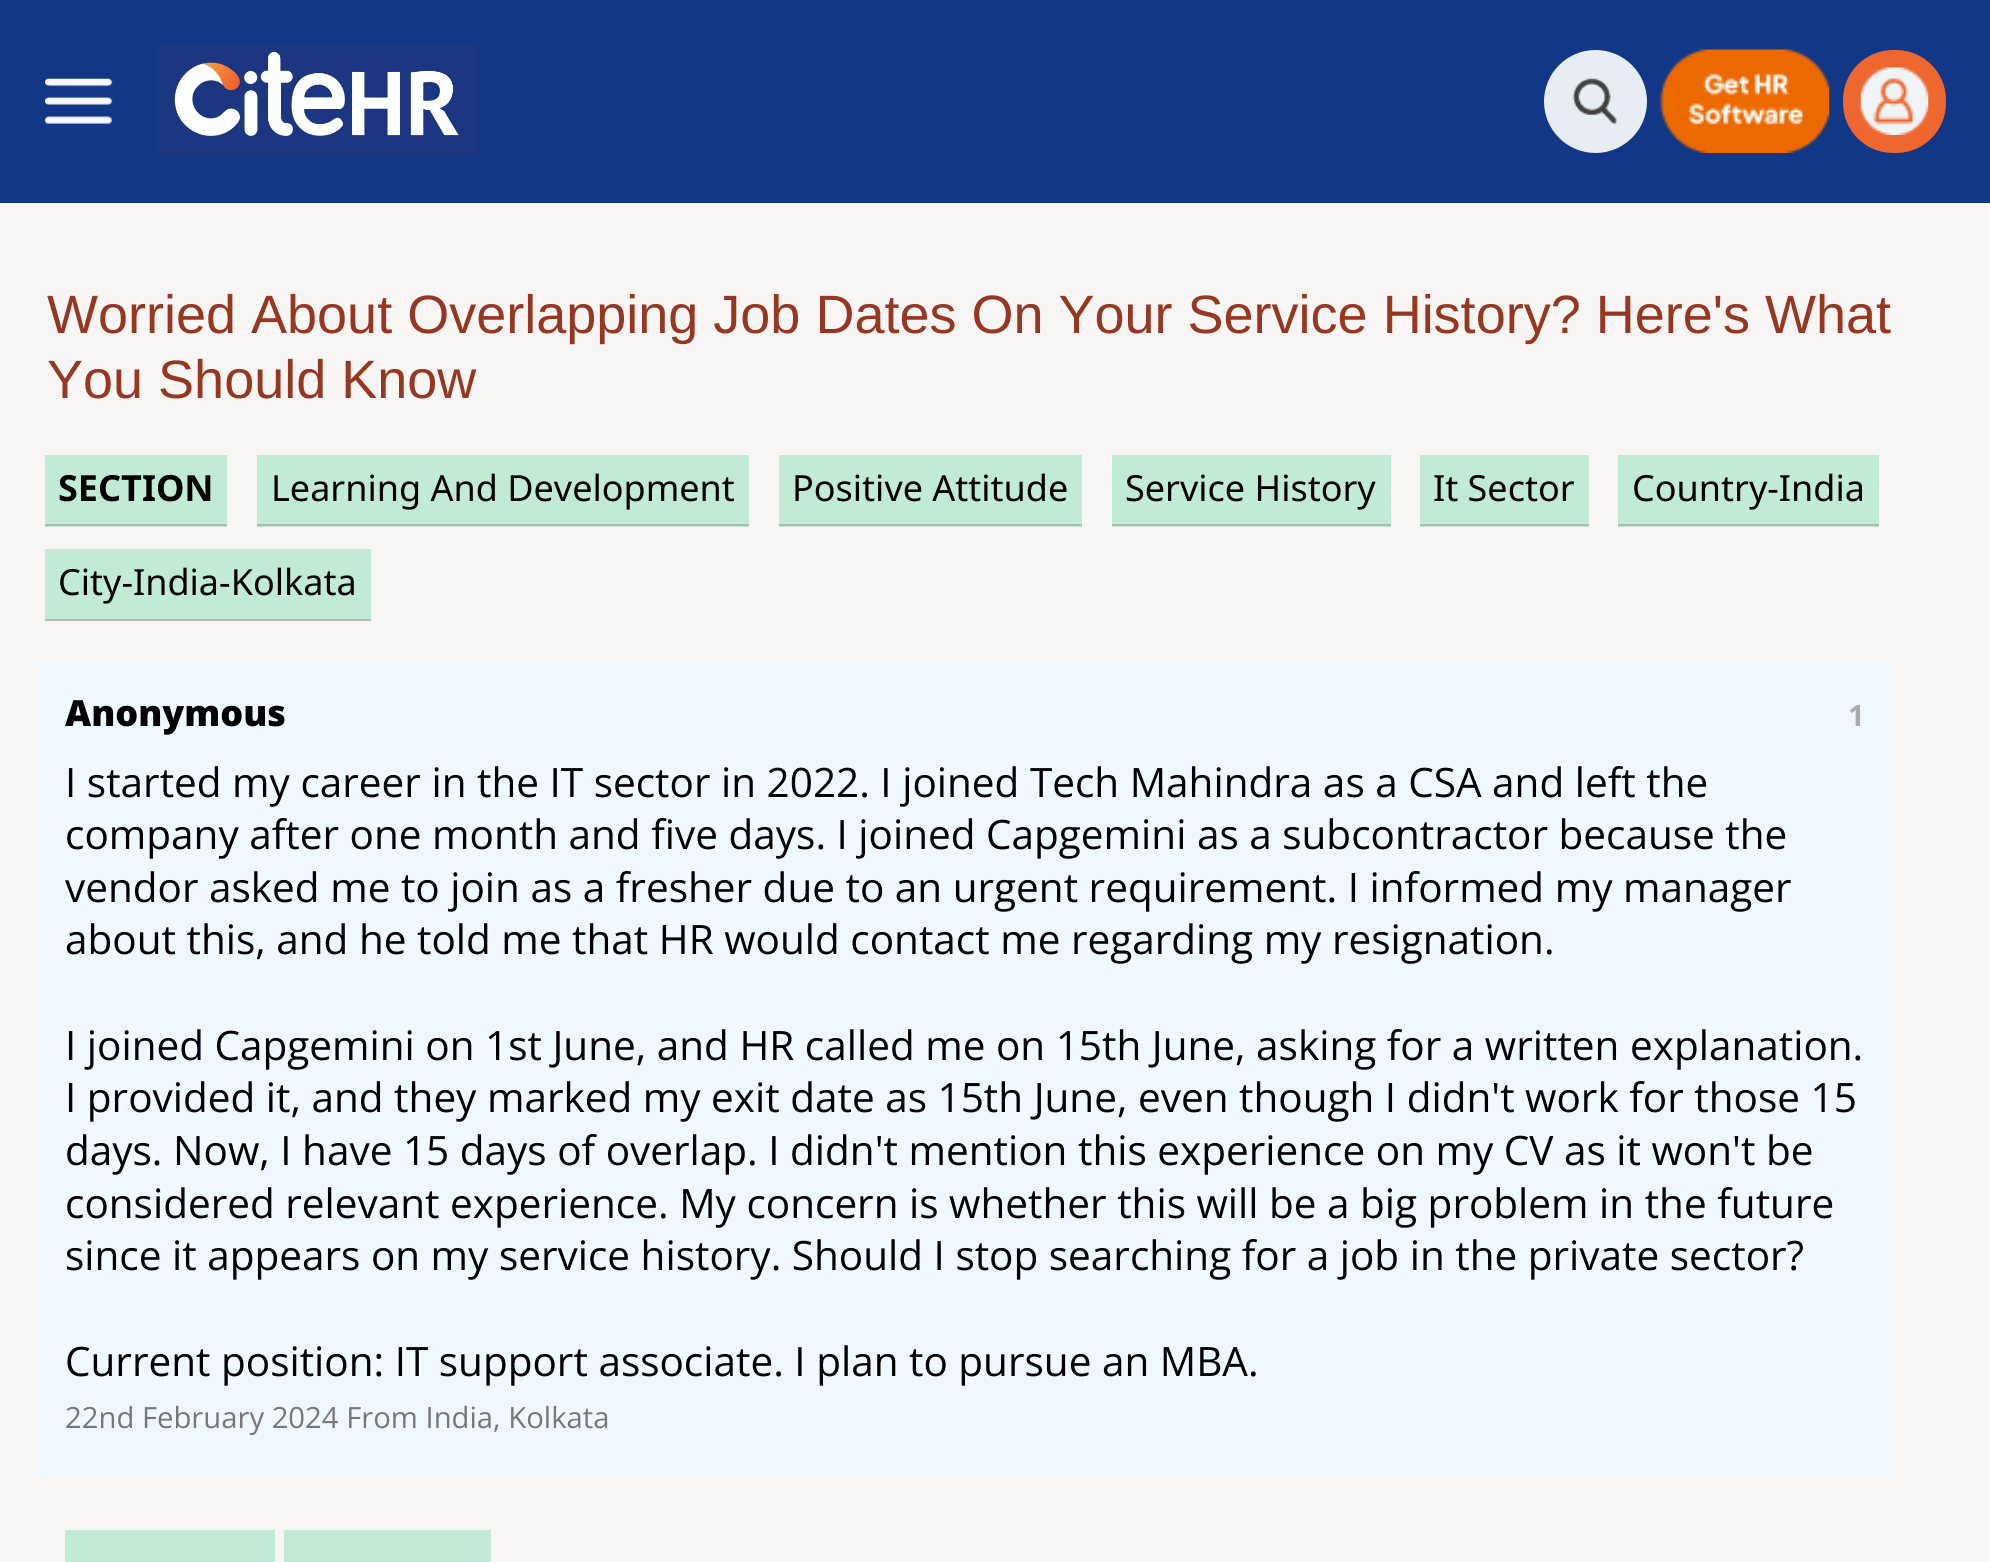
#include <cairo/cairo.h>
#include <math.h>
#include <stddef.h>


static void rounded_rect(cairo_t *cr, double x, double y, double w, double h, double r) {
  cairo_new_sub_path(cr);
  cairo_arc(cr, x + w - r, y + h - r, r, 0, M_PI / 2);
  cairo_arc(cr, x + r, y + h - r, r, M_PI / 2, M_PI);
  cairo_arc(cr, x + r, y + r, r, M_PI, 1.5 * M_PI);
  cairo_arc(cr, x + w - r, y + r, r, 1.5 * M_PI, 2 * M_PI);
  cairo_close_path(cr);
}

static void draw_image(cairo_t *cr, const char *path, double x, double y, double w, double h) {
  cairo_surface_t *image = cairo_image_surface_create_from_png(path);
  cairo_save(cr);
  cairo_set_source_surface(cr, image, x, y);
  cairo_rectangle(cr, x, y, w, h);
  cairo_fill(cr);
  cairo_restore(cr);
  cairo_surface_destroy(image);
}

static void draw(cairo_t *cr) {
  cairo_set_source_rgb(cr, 247 / 255.0, 246 / 255.0, 245 / 255.0);
  cairo_paint(cr);
  cairo_set_source_rgb(cr, 18 / 255.0, 55 / 255.0, 135 / 255.0);
  cairo_rectangle(cr, 0, 0, 1990, 203);
  cairo_fill(cr);
  draw_image(cr, "images/1.png", 45, 78, 68, 46);
  draw_image(cr, "images/2.png", 157, 45, 320, 113);
  cairo_set_source_rgb(cr, 231 / 255.0, 237 / 255.0, 242 / 255.0);
  cairo_arc(cr, 1595.5, 101.5, 51.5, 0, 2 * M_PI);
  cairo_fill(cr);
  draw_image(cr, "images/3.png", 1572, 78, 45, 46);
  draw_image(cr, "images/4.png", 1660, 49, 170, 104);
  cairo_set_source_rgb(cr, 239 / 255.0, 103 / 255.0, 48 / 255.0);
  rounded_rect(cr, 1843, 50, 103, 103, 50);
  cairo_fill(cr);
  draw_image(cr, "images/5.png", 1860, 67, 69, 68);
  cairo_set_source_rgb(cr, 194 / 255.0, 235 / 255.0, 213 / 255.0);
  cairo_rectangle(cr, 257, 455, 492, 72);
  cairo_fill(cr);
  cairo_set_source_rgb(cr, 181 / 255.0, 181 / 255.0, 181 / 255.0);
  cairo_rectangle(cr, 257, 524, 492, 2);
  cairo_fill(cr);
  cairo_set_source_rgb(cr, 194 / 255.0, 235 / 255.0, 213 / 255.0);
  cairo_rectangle(cr, 779, 455, 303, 72);
  cairo_fill(cr);
  cairo_set_source_rgb(cr, 181 / 255.0, 181 / 255.0, 181 / 255.0);
  cairo_rectangle(cr, 779, 524, 303, 2);
  cairo_fill(cr);
  cairo_set_source_rgb(cr, 194 / 255.0, 235 / 255.0, 213 / 255.0);
  cairo_rectangle(cr, 1112, 455, 279, 72);
  cairo_fill(cr);
  cairo_set_source_rgb(cr, 181 / 255.0, 181 / 255.0, 181 / 255.0);
  cairo_rectangle(cr, 1112, 524, 279, 2);
  cairo_fill(cr);
  cairo_set_source_rgb(cr, 194 / 255.0, 235 / 255.0, 213 / 255.0);
  cairo_rectangle(cr, 1420, 455, 169, 72);
  cairo_fill(cr);
  cairo_set_source_rgb(cr, 181 / 255.0, 181 / 255.0, 181 / 255.0);
  cairo_rectangle(cr, 1420, 524, 169, 2);
  cairo_fill(cr);
  cairo_set_source_rgb(cr, 194 / 255.0, 235 / 255.0, 213 / 255.0);
  cairo_rectangle(cr, 1618, 455, 261, 72);
  cairo_fill(cr);
  cairo_set_source_rgb(cr, 181 / 255.0, 181 / 255.0, 181 / 255.0);
  cairo_rectangle(cr, 1618, 524, 261, 2);
  cairo_fill(cr);
  cairo_set_source_rgb(cr, 194 / 255.0, 235 / 255.0, 213 / 255.0);
  cairo_rectangle(cr, 45, 549, 326, 70);
  cairo_fill(cr);
  cairo_set_source_rgb(cr, 181 / 255.0, 181 / 255.0, 181 / 255.0);
  cairo_rectangle(cr, 45, 619, 326, 2);
  cairo_fill(cr);
  cairo_set_source_rgb(cr, 194 / 255.0, 235 / 255.0, 213 / 255.0);
  cairo_rectangle(cr, 45, 455, 182, 72);
  cairo_fill(cr);
  cairo_set_source_rgb(cr, 181 / 255.0, 181 / 255.0, 181 / 255.0);
  cairo_rectangle(cr, 45, 524, 182, 2);
  cairo_fill(cr);
  cairo_set_source_rgb(cr, 240 / 255.0, 248 / 255.0, 1);
  cairo_rectangle(cr, 38, 662, 1854, 814);
  cairo_fill(cr);
  cairo_set_source_rgb(cr, 194 / 255.0, 235 / 255.0, 213 / 255.0);
  cairo_rectangle(cr, 65, 1530, 210, 32);
  cairo_fill(cr);
  cairo_rectangle(cr, 284, 1530, 207, 32);
  cairo_fill(cr);
  cairo_select_font_face(cr, "Liberation Sans", CAIRO_FONT_SLANT_NORMAL, CAIRO_FONT_WEIGHT_NORMAL);
  cairo_set_font_size(cr, 54);
  cairo_set_source_rgb(cr, 151 / 255.0, 55 / 255.0, 34 / 255.0);
  cairo_move_to(cr, 47, 333);
  cairo_show_text(cr, "Worried About Overlapping Job Dates On Your Service History? Here's What");
  cairo_move_to(cr, 47, 398);
  cairo_show_text(cr, "You Should Know");
  cairo_select_font_face(cr, "Noto Sans", CAIRO_FONT_SLANT_NORMAL, CAIRO_FONT_WEIGHT_NORMAL);
  cairo_set_font_size(cr, 36);
  cairo_set_source_rgb(cr, 0, 0, 0);
  cairo_move_to(cr, 271, 501);
  cairo_show_text(cr, "Learning And Development");
  cairo_move_to(cr, 792, 501);
  cairo_show_text(cr, "Positive Attitude");
  cairo_move_to(cr, 1125, 501);
  cairo_show_text(cr, "Service History");
  cairo_move_to(cr, 1433, 501);
  cairo_show_text(cr, "It Sector");
  cairo_move_to(cr, 1632, 501);
  cairo_show_text(cr, "Country-India");
  cairo_move_to(cr, 58, 595);
  cairo_show_text(cr, "City-India-Kolkata");
  cairo_select_font_face(cr, "Noto Sans", CAIRO_FONT_SLANT_NORMAL, CAIRO_FONT_WEIGHT_BOLD);
  cairo_move_to(cr, 58, 501);
  cairo_show_text(cr, "SECTION");
  cairo_select_font_face(cr, "Open Sans ExtraBold", CAIRO_FONT_SLANT_NORMAL, CAIRO_FONT_WEIGHT_NORMAL);
  cairo_move_to(cr, 65, 726);
  cairo_show_text(cr, "Anonymous");
  cairo_select_font_face(cr, "Open Sans", CAIRO_FONT_SLANT_NORMAL, CAIRO_FONT_WEIGHT_BOLD);
  cairo_set_font_size(cr, 29.25);
  cairo_set_source_rgb(cr, 170 / 255.0, 170 / 255.0, 170 / 255.0);
  cairo_move_to(cr, 1848, 726);
  cairo_show_text(cr, "1");
  cairo_select_font_face(cr, "Open Sans", CAIRO_FONT_SLANT_NORMAL, CAIRO_FONT_WEIGHT_NORMAL);
  cairo_set_font_size(cr, 40.5);
  cairo_set_source_rgb(cr, 0, 0, 0);
  cairo_move_to(cr, 65, 797);
  cairo_show_text(cr, "I started my career in the IT sector in 2022. I joined Tech Mahindra as a CSA and left the");
  cairo_move_to(cr, 65, 849);
  cairo_show_text(cr, "company after one month and five days. I joined Capgemini as a subcontractor because the");
  cairo_move_to(cr, 65, 902);
  cairo_show_text(cr, "vendor asked me to join as a fresher due to an urgent requirement. I informed my manager");
  cairo_move_to(cr, 65, 954);
  cairo_show_text(cr, "about this, and he told me that HR would contact me regarding my resignation.");
  cairo_move_to(cr, 65, 1060);
  cairo_show_text(cr, "I joined Capgemini on 1st June, and HR called me on 15th June, asking for a written explanation.");
  cairo_move_to(cr, 65, 1112);
  cairo_show_text(cr, "I provided it, and they marked my exit date as 15th June, even though I didn't work for those 15");
  cairo_move_to(cr, 65, 1165);
  cairo_show_text(cr, "days. Now, I have 15 days of overlap. I didn't mention this experience on my CV as it won't be");
  cairo_move_to(cr, 65, 1218);
  cairo_show_text(cr, "considered relevant experience. My concern is whether this will be a big problem in the future");
  cairo_move_to(cr, 65, 1270);
  cairo_show_text(cr, "since it appears on my service history. Should I stop searching for a job in the private sector?");
  cairo_move_to(cr, 65, 1376);
  cairo_show_text(cr, "Current position: IT support associate. I plan to pursue an MBA.");
  cairo_set_font_size(cr, 29.25);
  cairo_set_source_rgb(cr, 119 / 255.0, 119 / 255.0, 119 / 255.0);
  cairo_move_to(cr, 65, 1428);
  cairo_show_text(cr, "22nd February 2024 From India, Kolkata");
}

int main(void) {
  cairo_surface_t *surface = cairo_image_surface_create(CAIRO_FORMAT_RGB24, 1990, 1562);
  cairo_t *cr = cairo_create(surface);
  cairo_font_options_t *options = cairo_font_options_create();
  cairo_font_options_set_hint_metrics(options, CAIRO_HINT_METRICS_OFF);
  cairo_font_options_set_hint_style(options, CAIRO_HINT_STYLE_NONE);
  cairo_set_font_options(cr, options);
  cairo_set_miter_limit(cr, 4);
  draw(cr);
  cairo_surface_write_to_png(surface, "out.png");
  cairo_font_options_destroy(options);
  cairo_destroy(cr);
  cairo_surface_destroy(surface);
  return 0;
}
